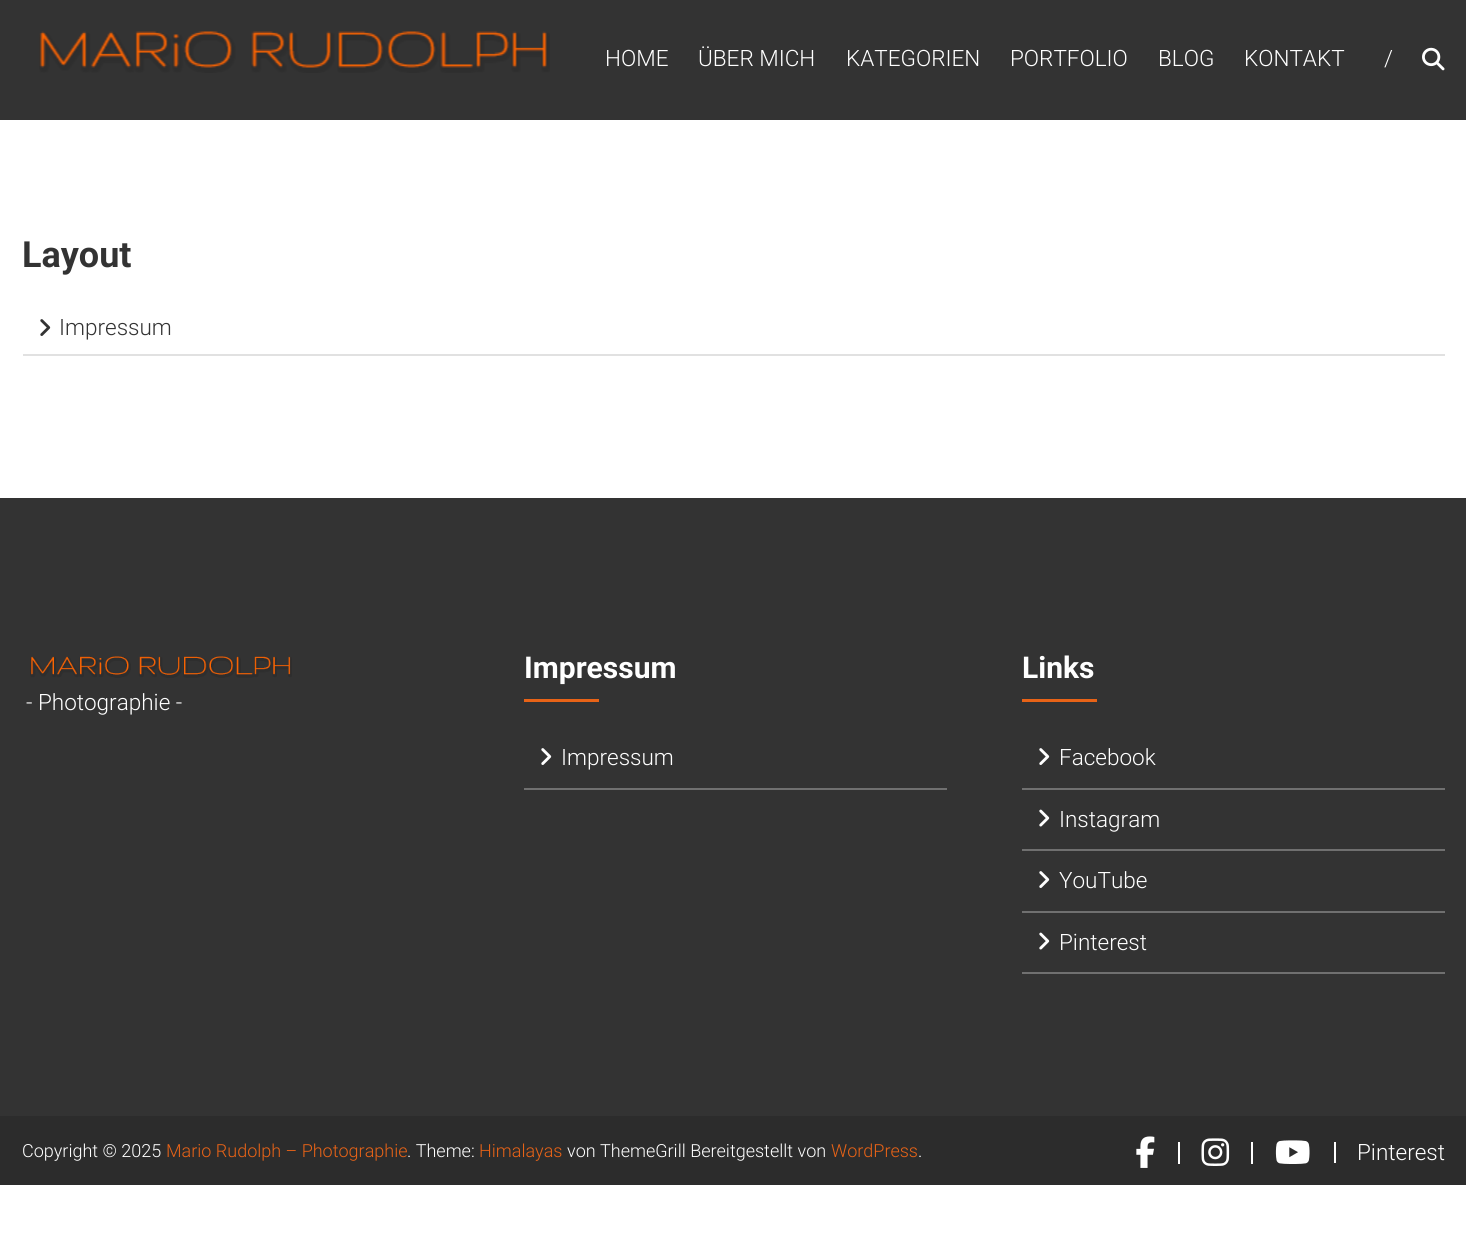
#include <cairo/cairo.h>
#include <math.h>
#include <stddef.h>


static void draw_image(cairo_t *cr, const char *path, double x, double y, double w, double h) {
  cairo_surface_t *image = cairo_image_surface_create_from_png(path);
  cairo_save(cr);
  cairo_set_source_surface(cr, image, x, y);
  cairo_rectangle(cr, x, y, w, h);
  cairo_fill(cr);
  cairo_restore(cr);
  cairo_surface_destroy(image);
}

static void draw(cairo_t *cr) {
  cairo_set_source_rgb(cr, 1, 1, 1);
  cairo_paint(cr);
  cairo_set_source_rgb(cr, 51 / 255.0, 51 / 255.0, 51 / 255.0);
  cairo_rectangle(cr, 0, 0, 1466, 120);
  cairo_fill(cr);
  draw_image(cr, "images/1.png", 39, 31, 511, 42);
  draw_image(cr, "images/2.png", 1422, 47, 23, 24);
  cairo_set_source_rgb(cr, 225 / 255.0, 225 / 255.0, 225 / 255.0);
  cairo_rectangle(cr, 23, 354, 1422, 2);
  cairo_fill(cr);
  draw_image(cr, "images/3.png", 40, 319, 11, 17);
  cairo_set_source_rgb(cr, 51 / 255.0, 51 / 255.0, 51 / 255.0);
  cairo_rectangle(cr, 0, 498, 1466, 618);
  cairo_fill(cr);
  draw_image(cr, "images/4.png", 30, 656, 262, 22);
  cairo_set_source_rgb(cr, 232 / 255.0, 99 / 255.0, 23 / 255.0);
  cairo_rectangle(cr, 524, 699, 75, 3);
  cairo_fill(cr);
  cairo_set_source_rgb(cr, 112 / 255.0, 112 / 255.0, 112 / 255.0);
  cairo_rectangle(cr, 524, 788, 423, 2);
  cairo_fill(cr);
  draw_image(cr, "images/5.png", 541, 748, 11, 17);
  cairo_set_source_rgb(cr, 232 / 255.0, 99 / 255.0, 23 / 255.0);
  cairo_rectangle(cr, 1022, 699, 75, 3);
  cairo_fill(cr);
  cairo_set_source_rgb(cr, 112 / 255.0, 112 / 255.0, 112 / 255.0);
  cairo_rectangle(cr, 1022, 788, 423, 2);
  cairo_fill(cr);
  draw_image(cr, "images/5.png", 1039, 748, 11, 17);
  cairo_rectangle(cr, 1022, 849, 423, 2);
  cairo_fill(cr);
  draw_image(cr, "images/6.png", 1039, 809, 11, 18);
  cairo_rectangle(cr, 1022, 911, 423, 2);
  cairo_fill(cr);
  draw_image(cr, "images/5.png", 1039, 871, 11, 17);
  cairo_rectangle(cr, 1022, 972, 423, 2);
  cairo_fill(cr);
  draw_image(cr, "images/6.png", 1039, 932, 11, 18);
  cairo_set_source_rgb(cr, 44 / 255.0, 44 / 255.0, 44 / 255.0);
  cairo_rectangle(cr, 0, 1116, 1466, 69);
  cairo_fill(cr);
  draw_image(cr, "images/7.png", 1136, 1136, 19, 32);
  cairo_set_source_rgb(cr, 1, 1, 1);
  cairo_rectangle(cr, 1178, 1142, 2, 22);
  cairo_fill(cr);
  draw_image(cr, "images/8.png", 1201, 1138, 29, 28);
  cairo_rectangle(cr, 1251, 1142, 2, 22);
  cairo_fill(cr);
  draw_image(cr, "images/9.png", 1275, 1140, 35, 24);
  cairo_rectangle(cr, 1334, 1142, 2, 21);
  cairo_fill(cr);
  cairo_select_font_face(cr, "Roboto Light", CAIRO_FONT_SLANT_NORMAL, CAIRO_FONT_WEIGHT_NORMAL);
  cairo_set_font_size(cr, 22.5);
  cairo_move_to(cr, 605, 66);
  cairo_show_text(cr, "HOME");
  cairo_move_to(cr, 698, 66);
  cairo_show_text(cr, "ÜBER MICH");
  cairo_move_to(cr, 846, 66);
  cairo_show_text(cr, "KATEGORIEN");
  cairo_move_to(cr, 1010, 66);
  cairo_show_text(cr, "PORTFOLIO");
  cairo_move_to(cr, 1158, 66);
  cairo_show_text(cr, "BLOG");
  cairo_move_to(cr, 1244, 66);
  cairo_show_text(cr, "KONTAKT");
  cairo_move_to(cr, 1384, 66);
  cairo_show_text(cr, "/");
  cairo_select_font_face(cr, "Roboto", CAIRO_FONT_SLANT_NORMAL, CAIRO_FONT_WEIGHT_BOLD);
  cairo_set_font_size(cr, 36);
  cairo_set_source_rgb(cr, 51 / 255.0, 51 / 255.0, 51 / 255.0);
  cairo_move_to(cr, 22, 267);
  cairo_show_text(cr, "Layout");
  cairo_select_font_face(cr, "Roboto Light", CAIRO_FONT_SLANT_NORMAL, CAIRO_FONT_WEIGHT_NORMAL);
  cairo_set_font_size(cr, 22.5);
  cairo_move_to(cr, 59, 335);
  cairo_show_text(cr, "Impressum");
  cairo_set_source_rgb(cr, 1, 1, 1);
  cairo_move_to(cr, 26, 710);
  cairo_show_text(cr, "- Photographie -");
  cairo_select_font_face(cr, "Roboto", CAIRO_FONT_SLANT_NORMAL, CAIRO_FONT_WEIGHT_BOLD);
  cairo_set_font_size(cr, 30);
  cairo_move_to(cr, 524, 678);
  cairo_show_text(cr, "Impressum");
  cairo_select_font_face(cr, "Roboto Light", CAIRO_FONT_SLANT_NORMAL, CAIRO_FONT_WEIGHT_NORMAL);
  cairo_set_font_size(cr, 22.5);
  cairo_move_to(cr, 561, 765);
  cairo_show_text(cr, "Impressum");
  cairo_select_font_face(cr, "Roboto", CAIRO_FONT_SLANT_NORMAL, CAIRO_FONT_WEIGHT_BOLD);
  cairo_set_font_size(cr, 30);
  cairo_move_to(cr, 1022, 678);
  cairo_show_text(cr, "Links");
  cairo_select_font_face(cr, "Roboto Light", CAIRO_FONT_SLANT_NORMAL, CAIRO_FONT_WEIGHT_NORMAL);
  cairo_set_font_size(cr, 22.5);
  cairo_move_to(cr, 1059, 765);
  cairo_show_text(cr, "Facebook");
  cairo_move_to(cr, 1059, 827);
  cairo_show_text(cr, "Instagram");
  cairo_move_to(cr, 1059, 888);
  cairo_show_text(cr, "YouTube");
  cairo_move_to(cr, 1059, 950);
  cairo_show_text(cr, "Pinterest");
  cairo_set_font_size(cr, 18);
  cairo_move_to(cr, 22, 1157);
  cairo_show_text(cr, "Copyright © 2025");
  cairo_set_source_rgb(cr, 232 / 255.0, 99 / 255.0, 23 / 255.0);
  cairo_move_to(cr, 166, 1157);
  cairo_show_text(cr, "Mario Rudolph – Photographie");
  cairo_set_source_rgb(cr, 1, 1, 1);
  cairo_move_to(cr, 407, 1157);
  cairo_show_text(cr, ". Theme:");
  cairo_set_source_rgb(cr, 232 / 255.0, 99 / 255.0, 23 / 255.0);
  cairo_move_to(cr, 479, 1157);
  cairo_show_text(cr, "Himalayas");
  cairo_set_source_rgb(cr, 1, 1, 1);
  cairo_move_to(cr, 567, 1157);
  cairo_show_text(cr, "von ThemeGrill Bereitgestellt von");
  cairo_set_source_rgb(cr, 232 / 255.0, 99 / 255.0, 23 / 255.0);
  cairo_move_to(cr, 831, 1157);
  cairo_show_text(cr, "WordPress");
  cairo_set_source_rgb(cr, 1, 1, 1);
  cairo_move_to(cr, 918, 1157);
  cairo_show_text(cr, ".");
  cairo_set_font_size(cr, 22.5);
  cairo_move_to(cr, 1357, 1160);
  cairo_show_text(cr, "Pinterest");
}

int main(void) {
  cairo_surface_t *surface = cairo_image_surface_create(CAIRO_FORMAT_RGB24, 1466, 1247);
  cairo_t *cr = cairo_create(surface);
  cairo_font_options_t *options = cairo_font_options_create();
  cairo_font_options_set_hint_metrics(options, CAIRO_HINT_METRICS_OFF);
  cairo_font_options_set_hint_style(options, CAIRO_HINT_STYLE_NONE);
  cairo_set_font_options(cr, options);
  cairo_set_miter_limit(cr, 4);
  draw(cr);
  cairo_surface_write_to_png(surface, "out.png");
  cairo_font_options_destroy(options);
  cairo_destroy(cr);
  cairo_surface_destroy(surface);
  return 0;
}
